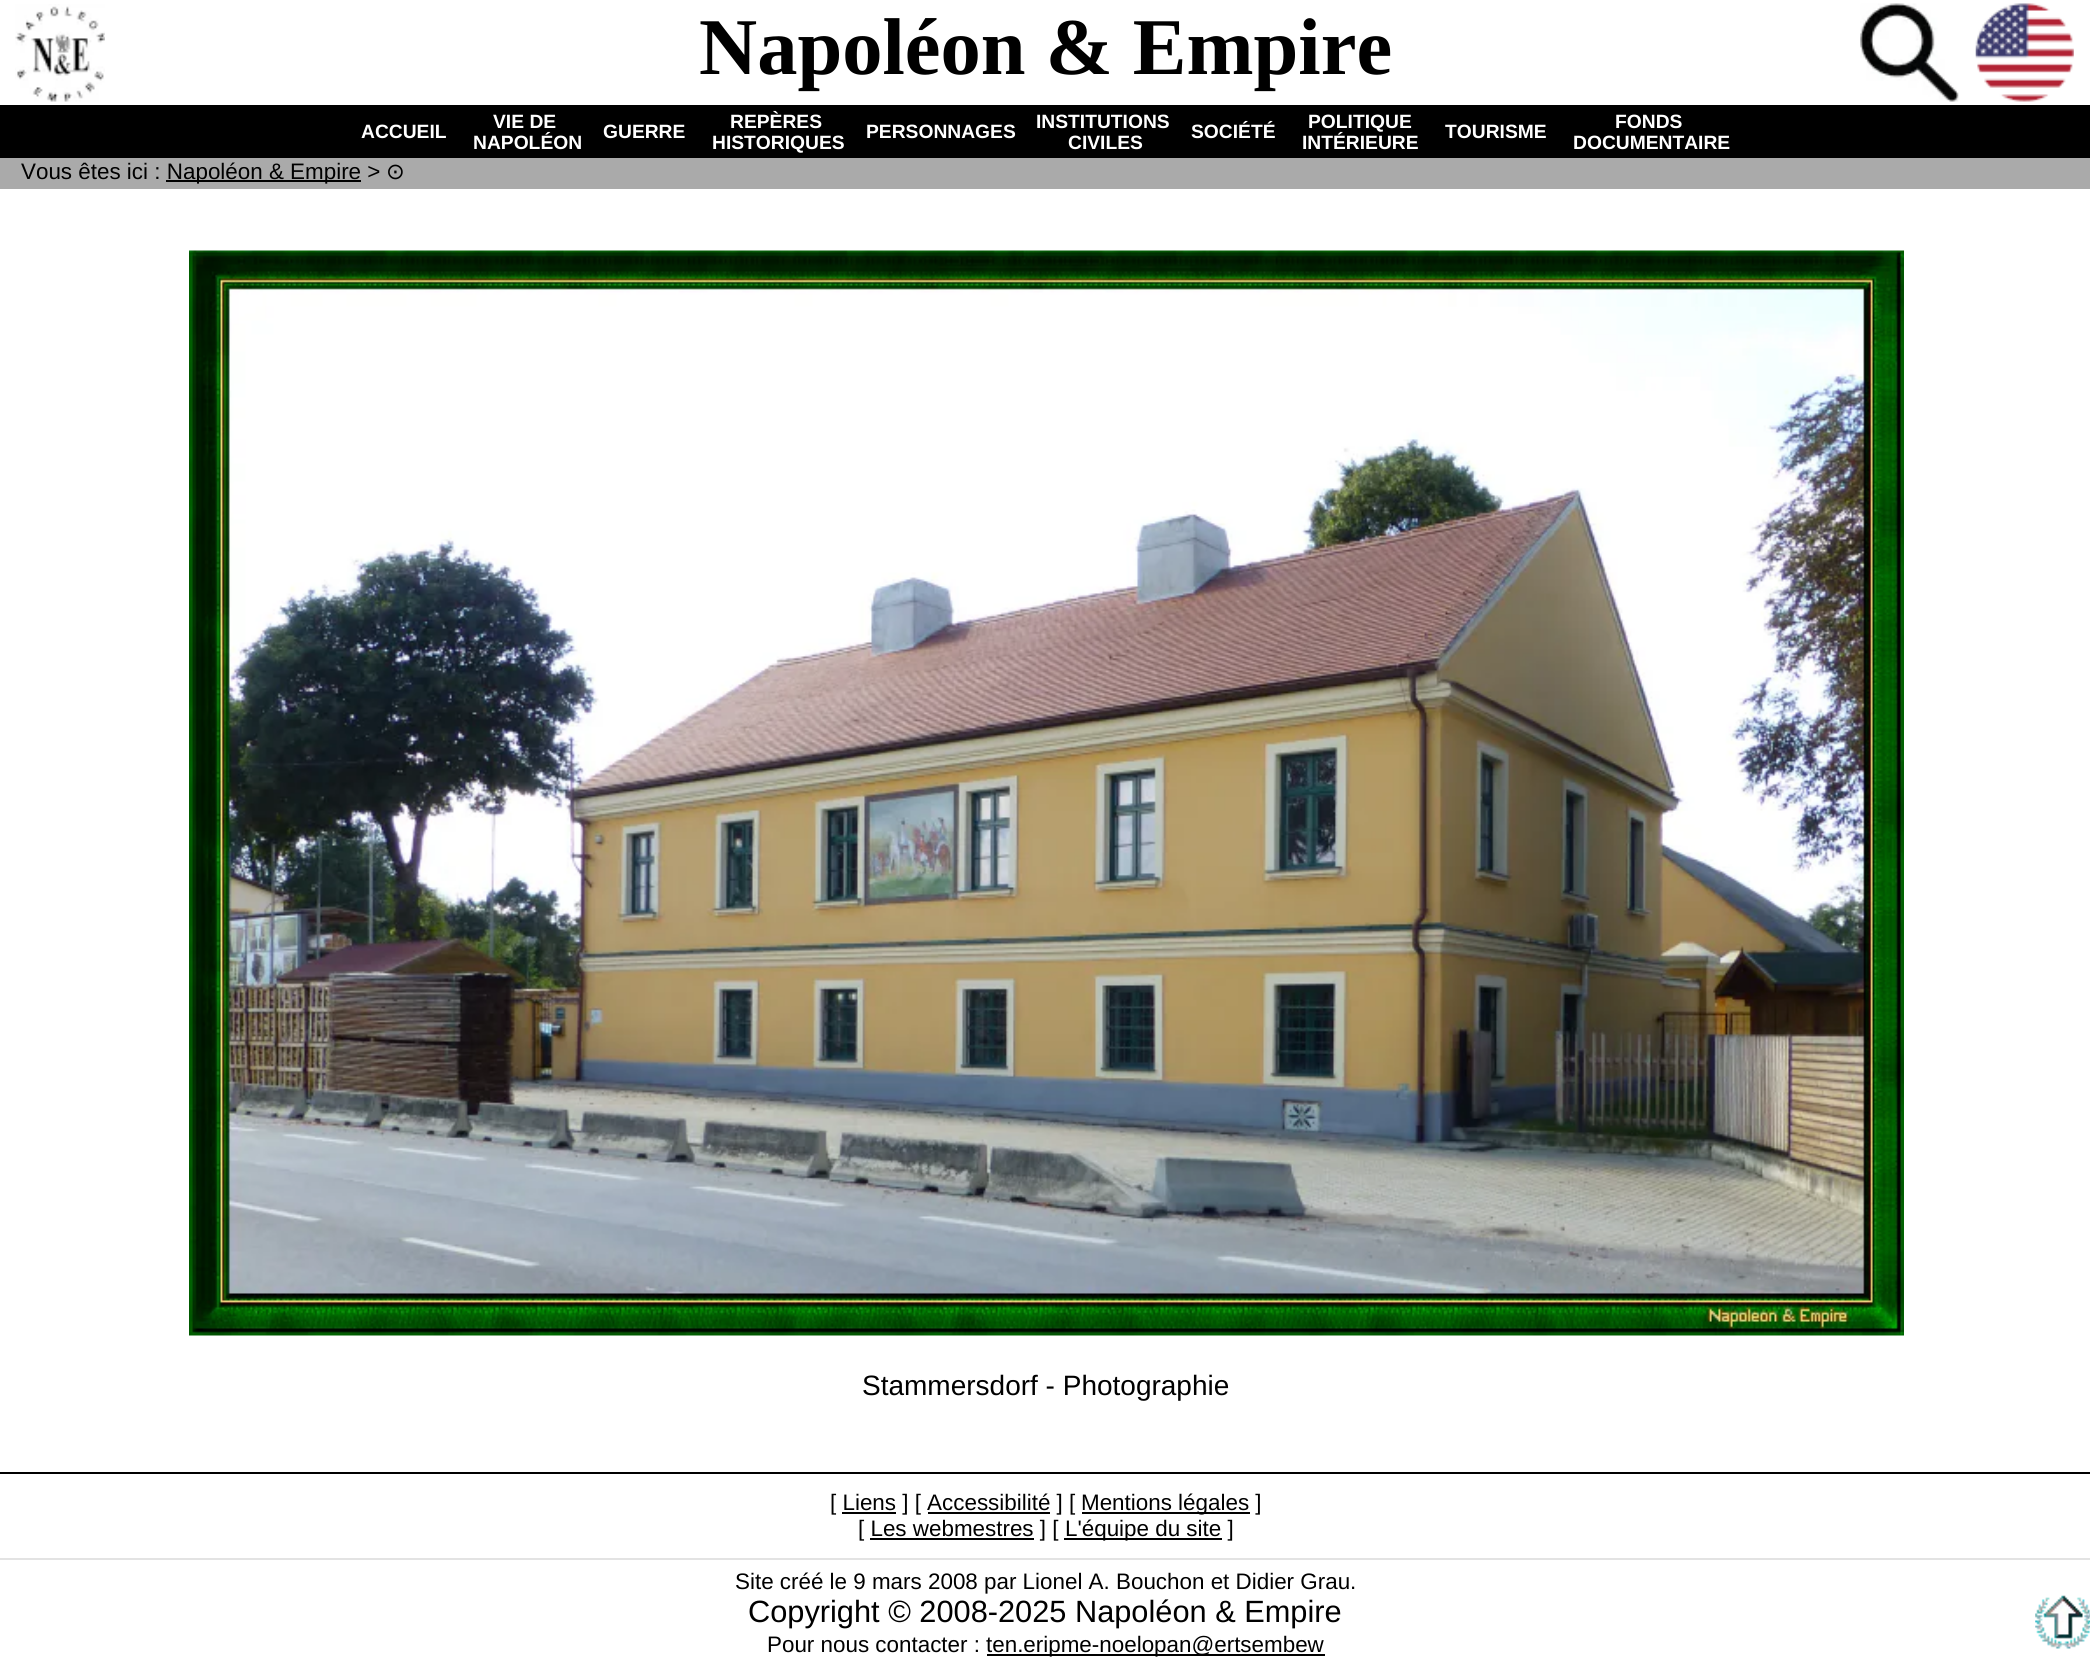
#include <cairo/cairo.h>
#include <math.h>
#include <stddef.h>


static void draw_image(cairo_t *cr, const char *path, double x, double y, double w, double h) {
  cairo_surface_t *image = cairo_image_surface_create_from_png(path);
  cairo_save(cr);
  cairo_set_source_surface(cr, image, x, y);
  cairo_rectangle(cr, x, y, w, h);
  cairo_fill(cr);
  cairo_restore(cr);
  cairo_surface_destroy(image);
}

static void draw(cairo_t *cr) {
  cairo_set_source_rgb(cr, 1, 1, 1);
  cairo_paint(cr);
  cairo_set_source_rgb(cr, 0, 0, 0);
  cairo_rectangle(cr, 0, 105, 2090, 53);
  cairo_fill(cr);
  draw_image(cr, "images/1.png", 15, 4, 90, 98);
  draw_image(cr, "images/2.png", 1860, 3, 99, 99);
  draw_image(cr, "images/3.png", 1975, 3, 99, 99);
  cairo_set_source_rgb(cr, 170 / 255.0, 170 / 255.0, 170 / 255.0);
  cairo_rectangle(cr, 0, 158, 2090, 31);
  cairo_fill(cr);
  cairo_set_source_rgb(cr, 0, 0, 0);
  cairo_rectangle(cr, 166, 180, 195, 2);
  cairo_fill(cr);
  draw_image(cr, "images/4.png", 2035, 1595, 55, 54);
  draw_image(cr, "images/5.png", 189, 250, 1715, 1086);
  cairo_rectangle(cr, 0, 1472, 2090, 2);
  cairo_fill(cr);
  cairo_set_source_rgb(cr, 227 / 255.0, 227 / 255.0, 227 / 255.0);
  cairo_rectangle(cr, 0, 1558, 2090, 2);
  cairo_fill(cr);
  cairo_set_source_rgb(cr, 0, 0, 0);
  cairo_rectangle(cr, 1082, 1512, 168, 2);
  cairo_fill(cr);
  cairo_rectangle(cr, 842, 1512, 54, 2);
  cairo_fill(cr);
  cairo_rectangle(cr, 928, 1512, 122, 2);
  cairo_fill(cr);
  cairo_rectangle(cr, 1064, 1538, 158, 2);
  cairo_fill(cr);
  cairo_rectangle(cr, 870, 1538, 164, 2);
  cairo_fill(cr);
  cairo_rectangle(cr, 987, 1654, 338, 2);
  cairo_fill(cr);
  cairo_select_font_face(cr, "Liberation Serif", CAIRO_FONT_SLANT_NORMAL, CAIRO_FONT_WEIGHT_BOLD);
  cairo_set_font_size(cr, 80.5);
  cairo_move_to(cr, 699, 74);
  cairo_show_text(cr, "Napoléon & Empire");
  cairo_select_font_face(cr, "Liberation Sans", CAIRO_FONT_SLANT_NORMAL, CAIRO_FONT_WEIGHT_BOLD);
  cairo_set_font_size(cr, 19.25);
  cairo_set_source_rgb(cr, 1, 1, 1);
  cairo_move_to(cr, 361, 138);
  cairo_show_text(cr, "ACCUEIL");
  cairo_move_to(cr, 493, 128);
  cairo_show_text(cr, "VIE DE");
  cairo_move_to(cr, 473, 149);
  cairo_show_text(cr, "NAPOLÉON");
  cairo_move_to(cr, 603, 138);
  cairo_show_text(cr, "GUERRE");
  cairo_move_to(cr, 730, 128);
  cairo_show_text(cr, "REPÈRES");
  cairo_move_to(cr, 712, 149);
  cairo_show_text(cr, "HISTORIQUES");
  cairo_move_to(cr, 866, 138);
  cairo_show_text(cr, "PERSONNAGES");
  cairo_move_to(cr, 1036, 128);
  cairo_show_text(cr, "INSTITUTIONS");
  cairo_move_to(cr, 1068, 149);
  cairo_show_text(cr, "CIVILES");
  cairo_move_to(cr, 1191, 138);
  cairo_show_text(cr, "SOCIÉTÉ");
  cairo_move_to(cr, 1308, 128);
  cairo_show_text(cr, "POLITIQUE");
  cairo_move_to(cr, 1302, 149);
  cairo_show_text(cr, "INTÉRIEURE");
  cairo_move_to(cr, 1445, 138);
  cairo_show_text(cr, "TOURISME");
  cairo_move_to(cr, 1615, 128);
  cairo_show_text(cr, "FONDS");
  cairo_move_to(cr, 1573, 149);
  cairo_show_text(cr, "DOCUMENTAIRE");
  cairo_select_font_face(cr, "Liberation Sans", CAIRO_FONT_SLANT_NORMAL, CAIRO_FONT_WEIGHT_NORMAL);
  cairo_set_font_size(cr, 22.4);
  cairo_set_source_rgb(cr, 0, 0, 0);
  cairo_move_to(cr, 21, 179);
  cairo_show_text(cr, "Vous êtes ici : N");
  cairo_move_to(cr, 183, 179);
  cairo_show_text(cr, "apoléon & Empire >");
  cairo_select_font_face(cr, "DejaVu Sans", CAIRO_FONT_SLANT_NORMAL, CAIRO_FONT_WEIGHT_NORMAL);
  cairo_move_to(cr, 386, 179);
  cairo_show_text(cr, "⊙");
  cairo_select_font_face(cr, "Liberation Sans", CAIRO_FONT_SLANT_NORMAL, CAIRO_FONT_WEIGHT_NORMAL);
  cairo_set_font_size(cr, 28);
  cairo_move_to(cr, 862, 1395);
  cairo_show_text(cr, "Stammersdorf - Photographie");
  cairo_set_font_size(cr, 22.4);
  cairo_move_to(cr, 830, 1510);
  cairo_show_text(cr, "[ Liens ] [ Accessibilité ] [");
  cairo_move_to(cr, 1081, 1510);
  cairo_show_text(cr, "Mentions légales ]");
  cairo_move_to(cr, 858, 1536);
  cairo_show_text(cr, "[ Les webmestres ] [");
  cairo_move_to(cr, 1065, 1536);
  cairo_show_text(cr, "L'équipe du site ]");
  cairo_move_to(cr, 735, 1589);
  cairo_show_text(cr, "Site créé le 9 mars 2008 par Lionel A. Bouchon et Didier Grau.");
  cairo_set_font_size(cr, 30.75);
  cairo_move_to(cr, 748, 1622);
  cairo_show_text(cr, "Copyright © 2008-2025 Napoléon & Empire");
  cairo_set_font_size(cr, 22.4);
  cairo_move_to(cr, 767, 1652);
  cairo_show_text(cr, "Pour nous contacter :");
  cairo_move_to(cr, 986, 1652);
  cairo_show_text(cr, "ten.eripme-noelopan@ertsembew");
}

int main(void) {
  cairo_surface_t *surface = cairo_image_surface_create(CAIRO_FORMAT_RGB24, 2090, 1657);
  cairo_t *cr = cairo_create(surface);
  cairo_font_options_t *options = cairo_font_options_create();
  cairo_font_options_set_hint_metrics(options, CAIRO_HINT_METRICS_OFF);
  cairo_font_options_set_hint_style(options, CAIRO_HINT_STYLE_NONE);
  cairo_set_font_options(cr, options);
  cairo_set_miter_limit(cr, 4);
  draw(cr);
  cairo_surface_write_to_png(surface, "out.png");
  cairo_font_options_destroy(options);
  cairo_destroy(cr);
  cairo_surface_destroy(surface);
  return 0;
}
